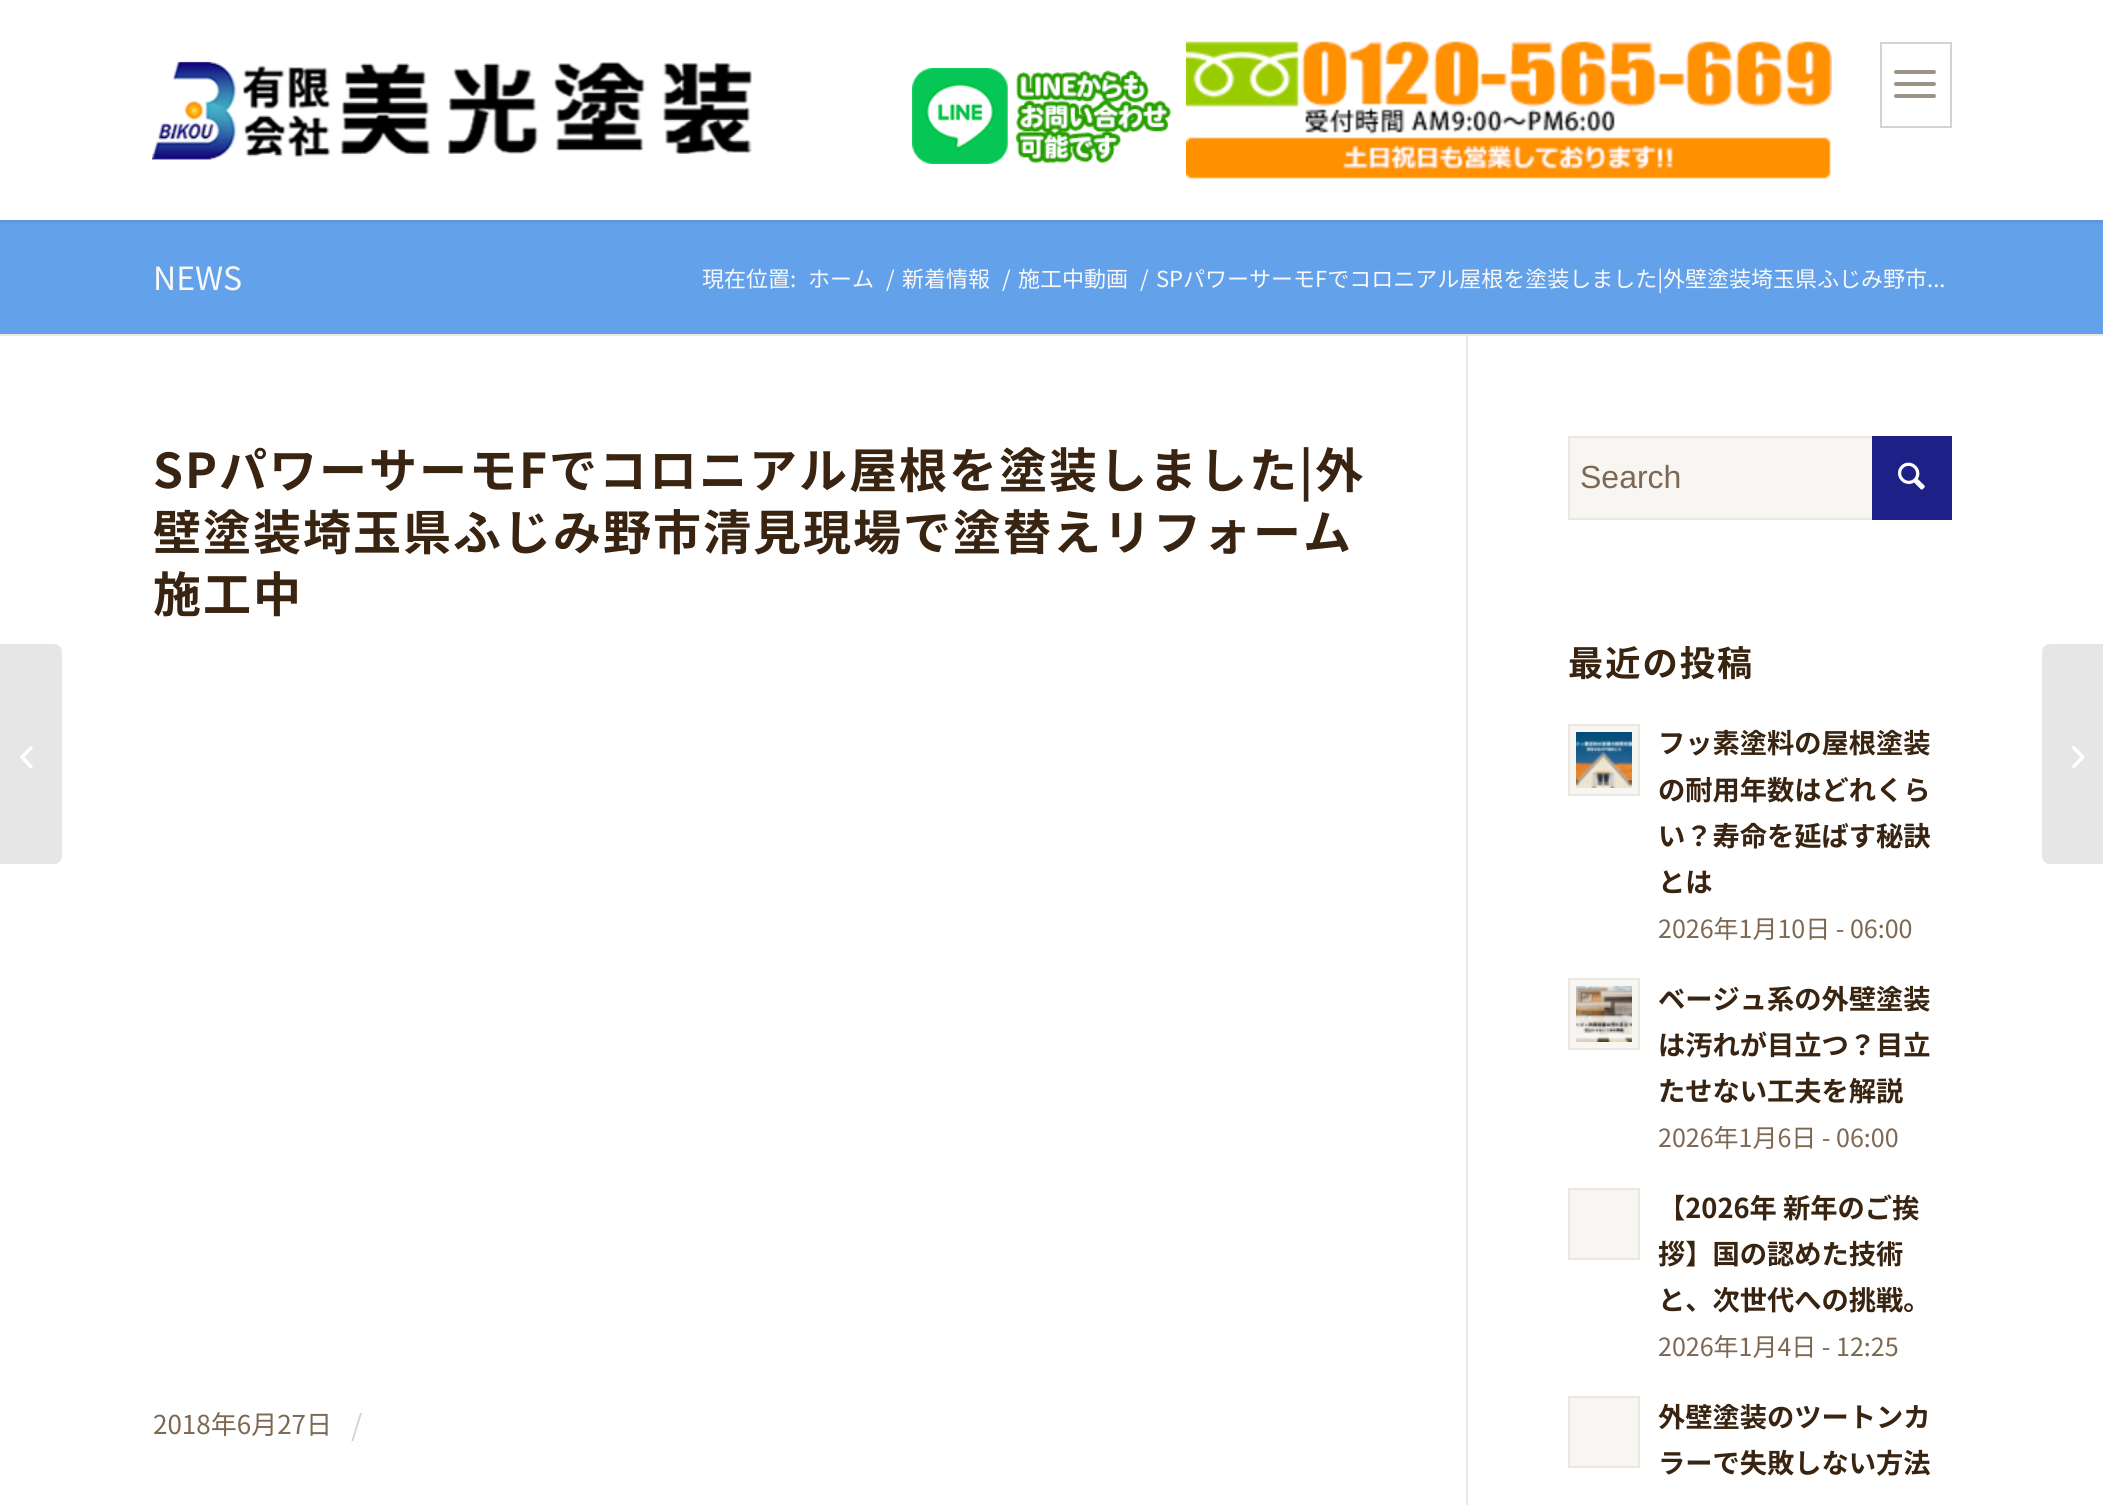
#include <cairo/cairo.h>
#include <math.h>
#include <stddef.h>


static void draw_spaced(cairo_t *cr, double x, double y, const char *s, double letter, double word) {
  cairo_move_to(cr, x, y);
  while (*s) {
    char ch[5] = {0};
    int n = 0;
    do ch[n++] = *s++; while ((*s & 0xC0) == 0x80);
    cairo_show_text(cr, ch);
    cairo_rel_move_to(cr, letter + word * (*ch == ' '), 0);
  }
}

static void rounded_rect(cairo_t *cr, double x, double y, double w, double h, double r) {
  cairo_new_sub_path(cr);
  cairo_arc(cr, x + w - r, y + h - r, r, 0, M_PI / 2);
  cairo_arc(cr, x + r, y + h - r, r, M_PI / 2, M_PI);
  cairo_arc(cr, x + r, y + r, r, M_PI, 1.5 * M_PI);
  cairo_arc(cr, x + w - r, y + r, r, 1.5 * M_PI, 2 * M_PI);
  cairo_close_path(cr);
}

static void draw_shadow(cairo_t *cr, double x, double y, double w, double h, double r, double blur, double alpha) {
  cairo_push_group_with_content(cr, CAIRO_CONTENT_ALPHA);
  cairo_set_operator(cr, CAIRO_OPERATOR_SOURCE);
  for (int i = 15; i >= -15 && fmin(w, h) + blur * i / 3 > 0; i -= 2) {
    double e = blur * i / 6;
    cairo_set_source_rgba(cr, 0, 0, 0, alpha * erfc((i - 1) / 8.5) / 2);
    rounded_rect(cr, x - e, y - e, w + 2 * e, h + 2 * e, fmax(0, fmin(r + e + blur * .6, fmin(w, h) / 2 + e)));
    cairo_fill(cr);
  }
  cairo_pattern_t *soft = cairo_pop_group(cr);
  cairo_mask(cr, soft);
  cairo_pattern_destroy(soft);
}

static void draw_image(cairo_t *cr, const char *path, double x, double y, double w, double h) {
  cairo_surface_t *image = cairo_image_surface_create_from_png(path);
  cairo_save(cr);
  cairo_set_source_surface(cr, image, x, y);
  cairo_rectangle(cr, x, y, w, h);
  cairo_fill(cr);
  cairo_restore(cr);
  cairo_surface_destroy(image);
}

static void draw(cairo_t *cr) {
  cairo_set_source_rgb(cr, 1, 1, 1);
  cairo_paint(cr);
  cairo_set_source_rgb(cr, 100 / 255.0, 161 / 255.0, 235 / 255.0);
  cairo_rectangle(cr, 0, 220, 2103, 114);
  cairo_fill(cr);
  cairo_set_source_rgb(cr, 0, 0, 0);
  draw_shadow(cr, -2, -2, 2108, 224, 0, 2, 0.1);
  cairo_set_source_rgb(cr, 1, 1, 1);
  cairo_rectangle(cr, 0, 0, 2103, 220);
  cairo_fill(cr);
  draw_image(cr, "images/1.png", 152, 61, 600, 99);
  draw_image(cr, "images/2.png", 912, 68, 259, 96);
  draw_image(cr, "images/3.png", 1186, 41, 646, 138);
  cairo_rectangle(cr, 1881, 43, 70, 84);
  cairo_set_source_rgb(cr, 211 / 255.0, 211 / 255.0, 211 / 255.0);
  cairo_stroke(cr);
  cairo_set_source_rgb(cr, 156 / 255.0, 146 / 255.0, 136 / 255.0);
  rounded_rect(cr, 1894, 82, 42, 4, 2);
  cairo_fill(cr);
  rounded_rect(cr, 1894, 70, 42, 4, 2);
  cairo_fill(cr);
  rounded_rect(cr, 1894, 94, 42, 4, 2);
  cairo_fill(cr);
  cairo_set_source_rgb(cr, 230 / 255.0, 230 / 255.0, 230 / 255.0);
  cairo_new_path(cr);
  cairo_move_to(cr, 0, 644);
  cairo_line_to(cr, 54, 644);
  cairo_curve_to(cr, 58.5, 644, 62, 647.5, 62, 652);
  cairo_line_to(cr, 62, 856);
  cairo_curve_to(cr, 62, 860.5, 58.5, 864, 54, 864);
  cairo_line_to(cr, 0, 864);
  cairo_close_path(cr);
  cairo_fill(cr);
  draw_image(cr, "images/4.png", 20, 746, 13, 22);
  cairo_set_source_rgb(cr, 235 / 255.0, 232 / 255.0, 226 / 255.0);
  cairo_rectangle(cr, 0, 334, 2103, 2);
  cairo_fill(cr);
  cairo_rectangle(cr, 1466, 336, 2, 1169);
  cairo_fill(cr);
  cairo_set_source_rgb(cr, 248 / 255.0, 246 / 255.0, 242 / 255.0);
  cairo_rectangle(cr, 1570, 438, 302, 80);
  cairo_fill(cr);
  cairo_rectangle(cr, 1569, 437, 382, 82);
  cairo_set_source_rgb(cr, 235 / 255.0, 232 / 255.0, 226 / 255.0);
  cairo_stroke(cr);
  cairo_set_source_rgb(cr, 29 / 255.0, 33 / 255.0, 135 / 255.0);
  cairo_rectangle(cr, 1872, 436, 80, 84);
  cairo_fill(cr);
  draw_image(cr, "images/5.png", 1898, 462, 27, 28);
  cairo_set_source_rgb(cr, 248 / 255.0, 246 / 255.0, 242 / 255.0);
  cairo_rectangle(cr, 1569, 725, 70, 70);
  cairo_fill_preserve(cr);
  cairo_set_source_rgb(cr, 235 / 255.0, 232 / 255.0, 226 / 255.0);
  cairo_stroke(cr);
  draw_image(cr, "images/6.png", 1576, 732, 56, 56);
  cairo_set_source_rgb(cr, 248 / 255.0, 246 / 255.0, 242 / 255.0);
  cairo_rectangle(cr, 1569, 979, 70, 70);
  cairo_fill_preserve(cr);
  cairo_set_source_rgb(cr, 235 / 255.0, 232 / 255.0, 226 / 255.0);
  cairo_stroke(cr);
  draw_image(cr, "images/7.png", 1576, 986, 56, 56);
  cairo_set_source_rgb(cr, 248 / 255.0, 246 / 255.0, 242 / 255.0);
  cairo_rectangle(cr, 1569, 1189, 70, 70);
  cairo_fill_preserve(cr);
  cairo_set_source_rgb(cr, 235 / 255.0, 232 / 255.0, 226 / 255.0);
  cairo_stroke(cr);
  cairo_set_source_rgb(cr, 248 / 255.0, 246 / 255.0, 242 / 255.0);
  cairo_rectangle(cr, 1569, 1397, 70, 70);
  cairo_fill_preserve(cr);
  cairo_set_source_rgb(cr, 235 / 255.0, 232 / 255.0, 226 / 255.0);
  cairo_stroke(cr);
  cairo_set_source_rgb(cr, 230 / 255.0, 230 / 255.0, 230 / 255.0);
  cairo_new_path(cr);
  cairo_move_to(cr, 2050, 644);
  cairo_line_to(cr, 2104, 644);
  cairo_line_to(cr, 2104, 864);
  cairo_line_to(cr, 2050, 864);
  cairo_curve_to(cr, 2045.5, 864, 2042, 860.5, 2042, 856);
  cairo_line_to(cr, 2042, 652);
  cairo_curve_to(cr, 2042, 647.5, 2045.5, 644, 2050, 644);
  cairo_close_path(cr);
  cairo_fill(cr);
  draw_image(cr, "images/8.png", 2072, 746, 13, 23);
  cairo_select_font_face(cr, "Noto Sans JP", CAIRO_FONT_SLANT_NORMAL, CAIRO_FONT_WEIGHT_NORMAL);
  cairo_set_font_size(cr, 32);
  cairo_set_source_rgb(cr, 248 / 255.0, 248 / 255.0, 248 / 255.0);
  cairo_move_to(cr, 153, 290);
  cairo_show_text(cr, "NEWS");
  cairo_set_font_size(cr, 22);
  cairo_move_to(cr, 702, 287);
  cairo_show_text(cr, "現在位置:");
  cairo_move_to(cr, 808, 287);
  cairo_show_text(cr, "ホーム");
  cairo_move_to(cr, 886, 287);
  cairo_show_text(cr, "/");
  cairo_move_to(cr, 902, 287);
  cairo_show_text(cr, "新着情報");
  cairo_move_to(cr, 1002, 287);
  cairo_show_text(cr, "/");
  cairo_move_to(cr, 1018, 287);
  cairo_show_text(cr, "施工中動画");
  cairo_move_to(cr, 1140, 287);
  cairo_show_text(cr, "/");
  cairo_move_to(cr, 1156, 287);
  cairo_show_text(cr, "SPパワーサーモFでコロニアル屋根を塗装しました|外壁塗装埼玉県ふじみ野市...");
  cairo_select_font_face(cr, "Noto Sans JP", CAIRO_FONT_SLANT_NORMAL, CAIRO_FONT_WEIGHT_BOLD);
  cairo_set_font_size(cr, 48);
  cairo_set_source_rgb(cr, 56 / 255.0, 36 / 255.0, 16 / 255.0);
  draw_spaced(cr, 153, 488, "SPパワーサーモFでコロニアル屋根を塗装しました|外", 2, 0);
  draw_spaced(cr, 153, 550, "壁塗装埼玉県ふじみ野市清見現場で塗替えリフォーム", 2, 0);
  draw_spaced(cr, 153, 612, "施工中", 2, 0);
  cairo_select_font_face(cr, "Noto Sans JP", CAIRO_FONT_SLANT_NORMAL, CAIRO_FONT_WEIGHT_NORMAL);
  cairo_set_font_size(cr, 26);
  cairo_set_source_rgb(cr, 124 / 255.0, 104 / 255.0, 83 / 255.0);
  cairo_move_to(cr, 153, 1434);
  cairo_show_text(cr, "2018年6月27日");
  cairo_set_font_size(cr, 29);
  cairo_set_source_rgb(cr, 216 / 255.0, 210 / 255.0, 203 / 255.0);
  cairo_move_to(cr, 351, 1436);
  cairo_show_text(cr, "/");
  cairo_select_font_face(cr, "Liberation Sans", CAIRO_FONT_SLANT_NORMAL, CAIRO_FONT_WEIGHT_NORMAL);
  cairo_set_font_size(cr, 32);
  cairo_set_source_rgb(cr, 124 / 255.0, 104 / 255.0, 83 / 255.0);
  cairo_move_to(cr, 1580, 488);
  cairo_show_text(cr, "Search");
  cairo_select_font_face(cr, "Noto Sans JP", CAIRO_FONT_SLANT_NORMAL, CAIRO_FONT_WEIGHT_BOLD);
  cairo_set_font_size(cr, 35.25);
  cairo_set_source_rgb(cr, 56 / 255.0, 36 / 255.0, 16 / 255.0);
  draw_spaced(cr, 1568, 676, "最近の投稿", 2, 0);
  cairo_set_font_size(cr, 27.25);
  cairo_move_to(cr, 1658, 753);
  cairo_show_text(cr, "フッ素塗料の屋根塗装");
  cairo_move_to(cr, 1658, 800);
  cairo_show_text(cr, "の耐用年数はどれくら");
  cairo_move_to(cr, 1658, 846);
  cairo_show_text(cr, "い？寿命を延ばす秘訣");
  cairo_move_to(cr, 1658, 892);
  cairo_show_text(cr, "とは");
  cairo_select_font_face(cr, "Noto Sans JP", CAIRO_FONT_SLANT_NORMAL, CAIRO_FONT_WEIGHT_NORMAL);
  cairo_set_font_size(cr, 25);
  cairo_set_source_rgb(cr, 124 / 255.0, 104 / 255.0, 83 / 255.0);
  cairo_move_to(cr, 1658, 938);
  cairo_show_text(cr, "2026年1月10日 - 06:00");
  cairo_select_font_face(cr, "Noto Sans JP", CAIRO_FONT_SLANT_NORMAL, CAIRO_FONT_WEIGHT_BOLD);
  cairo_set_font_size(cr, 27.25);
  cairo_set_source_rgb(cr, 56 / 255.0, 36 / 255.0, 16 / 255.0);
  cairo_move_to(cr, 1658, 1009);
  cairo_show_text(cr, "ベージュ系の外壁塗装");
  cairo_move_to(cr, 1658, 1055);
  cairo_show_text(cr, "は汚れが目立つ？目立");
  cairo_move_to(cr, 1658, 1101);
  cairo_show_text(cr, "たせない工夫を解説");
  cairo_select_font_face(cr, "Noto Sans JP", CAIRO_FONT_SLANT_NORMAL, CAIRO_FONT_WEIGHT_NORMAL);
  cairo_set_font_size(cr, 25);
  cairo_set_source_rgb(cr, 124 / 255.0, 104 / 255.0, 83 / 255.0);
  cairo_move_to(cr, 1658, 1147);
  cairo_show_text(cr, "2026年1月6日 - 06:00");
  cairo_select_font_face(cr, "Noto Sans JP", CAIRO_FONT_SLANT_NORMAL, CAIRO_FONT_WEIGHT_BOLD);
  cairo_set_font_size(cr, 27.25);
  cairo_set_source_rgb(cr, 56 / 255.0, 36 / 255.0, 16 / 255.0);
  cairo_move_to(cr, 1658, 1218);
  cairo_show_text(cr, "【2026年 新年のご挨");
  cairo_move_to(cr, 1658, 1264);
  cairo_show_text(cr, "拶】国の認めた技術");
  cairo_move_to(cr, 1658, 1310);
  cairo_show_text(cr, "と、次世代への挑戦。");
  cairo_select_font_face(cr, "Noto Sans JP", CAIRO_FONT_SLANT_NORMAL, CAIRO_FONT_WEIGHT_NORMAL);
  cairo_set_font_size(cr, 25);
  cairo_set_source_rgb(cr, 124 / 255.0, 104 / 255.0, 83 / 255.0);
  cairo_move_to(cr, 1658, 1356);
  cairo_show_text(cr, "2026年1月4日 - 12:25");
  cairo_select_font_face(cr, "Noto Sans JP", CAIRO_FONT_SLANT_NORMAL, CAIRO_FONT_WEIGHT_BOLD);
  cairo_set_font_size(cr, 27.25);
  cairo_set_source_rgb(cr, 56 / 255.0, 36 / 255.0, 16 / 255.0);
  cairo_move_to(cr, 1658, 1427);
  cairo_show_text(cr, "外壁塗装のツートンカ");
  cairo_move_to(cr, 1658, 1473);
  cairo_show_text(cr, "ラーで失敗しない方法");
}

int main(void) {
  cairo_surface_t *surface = cairo_image_surface_create(CAIRO_FORMAT_RGB24, 2103, 1505);
  cairo_t *cr = cairo_create(surface);
  cairo_font_options_t *options = cairo_font_options_create();
  cairo_font_options_set_hint_metrics(options, CAIRO_HINT_METRICS_OFF);
  cairo_font_options_set_hint_style(options, CAIRO_HINT_STYLE_NONE);
  cairo_set_font_options(cr, options);
  cairo_set_miter_limit(cr, 4);
  draw(cr);
  cairo_surface_write_to_png(surface, "out.png");
  cairo_font_options_destroy(options);
  cairo_destroy(cr);
  cairo_surface_destroy(surface);
  return 0;
}
